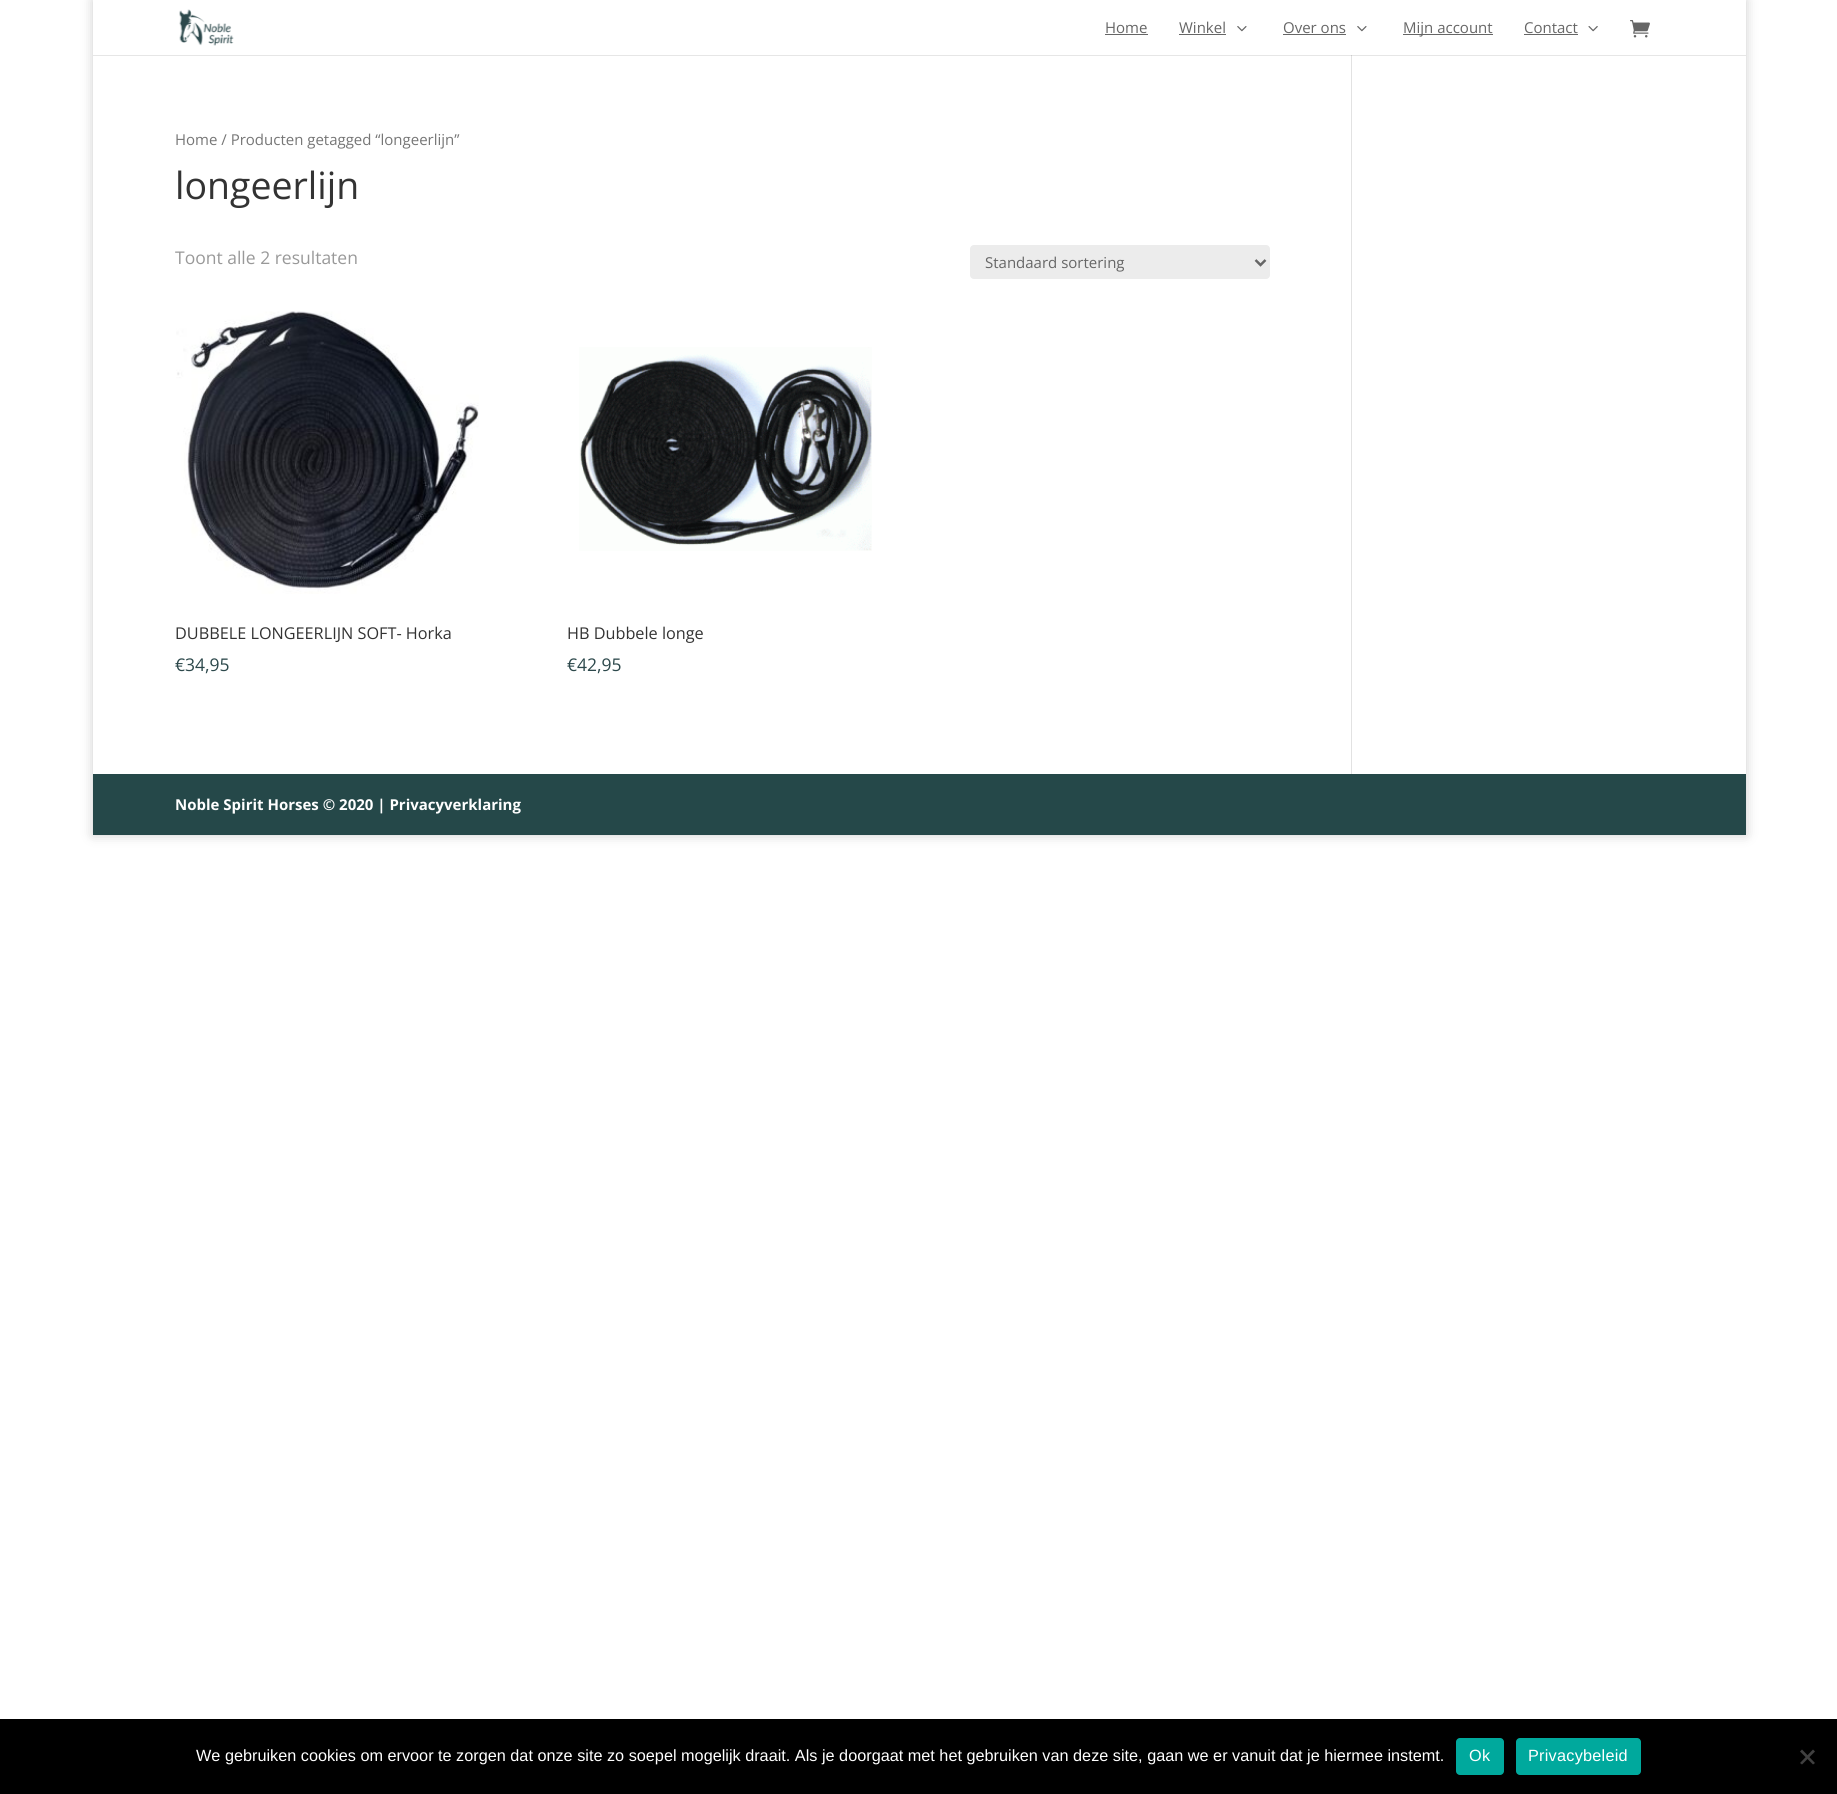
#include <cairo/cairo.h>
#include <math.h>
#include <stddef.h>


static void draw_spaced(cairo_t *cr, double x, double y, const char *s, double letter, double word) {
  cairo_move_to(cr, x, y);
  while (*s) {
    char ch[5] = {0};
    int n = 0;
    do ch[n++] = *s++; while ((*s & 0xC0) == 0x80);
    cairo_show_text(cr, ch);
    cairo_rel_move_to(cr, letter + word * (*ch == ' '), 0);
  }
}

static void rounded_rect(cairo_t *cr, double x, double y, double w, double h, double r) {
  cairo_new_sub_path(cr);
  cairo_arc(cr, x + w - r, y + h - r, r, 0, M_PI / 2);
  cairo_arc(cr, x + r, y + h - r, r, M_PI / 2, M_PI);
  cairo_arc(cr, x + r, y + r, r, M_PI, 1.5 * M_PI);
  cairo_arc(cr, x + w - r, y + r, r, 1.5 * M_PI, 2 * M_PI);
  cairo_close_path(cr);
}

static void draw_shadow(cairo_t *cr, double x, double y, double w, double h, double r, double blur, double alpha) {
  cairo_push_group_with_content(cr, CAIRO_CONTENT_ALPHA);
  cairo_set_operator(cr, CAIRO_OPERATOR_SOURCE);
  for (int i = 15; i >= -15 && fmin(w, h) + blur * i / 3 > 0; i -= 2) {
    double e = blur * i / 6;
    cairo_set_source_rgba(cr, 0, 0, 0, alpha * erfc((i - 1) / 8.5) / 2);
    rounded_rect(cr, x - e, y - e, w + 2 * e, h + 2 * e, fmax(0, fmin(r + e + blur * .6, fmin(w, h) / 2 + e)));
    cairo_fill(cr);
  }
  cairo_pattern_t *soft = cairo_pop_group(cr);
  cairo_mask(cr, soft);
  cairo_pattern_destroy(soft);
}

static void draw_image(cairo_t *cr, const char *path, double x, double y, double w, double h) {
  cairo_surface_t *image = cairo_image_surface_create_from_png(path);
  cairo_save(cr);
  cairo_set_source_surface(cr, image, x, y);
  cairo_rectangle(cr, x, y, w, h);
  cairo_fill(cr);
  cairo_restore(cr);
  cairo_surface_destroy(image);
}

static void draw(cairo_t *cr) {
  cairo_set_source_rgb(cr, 1, 1, 1);
  cairo_paint(cr);
  cairo_set_source_rgb(cr, 230 / 255.0, 230 / 255.0, 230 / 255.0);
  cairo_rectangle(cr, 93, 55, 1653, 1);
  cairo_fill(cr);
  cairo_save(cr);
  cairo_set_fill_rule(cr, CAIRO_FILL_RULE_EVEN_ODD);
  cairo_new_path(cr);
  cairo_move_to(cr, 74, 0);
  cairo_line_to(cr, 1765, 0);
  cairo_line_to(cr, 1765, 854);
  cairo_line_to(cr, 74, 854);
  cairo_close_path(cr);
  cairo_move_to(cr, 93, 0);
  cairo_line_to(cr, 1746, 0);
  cairo_line_to(cr, 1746, 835);
  cairo_line_to(cr, 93, 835);
  cairo_close_path(cr);
  cairo_clip(cr);
  cairo_set_source_rgb(cr, 0, 0, 0);
  draw_shadow(cr, 93, 0, 1653, 835, 0, 6, 0.2);
  cairo_restore(cr);
  draw_image(cr, "images/1.png", 179, 9, 55, 37);
  cairo_set_source_rgb(cr, 102 / 255.0, 102 / 255.0, 102 / 255.0);
  cairo_rectangle(cr, 1105, 34, 43, 1);
  cairo_fill(cr);
  cairo_rectangle(cr, 1179, 34, 47, 1);
  cairo_fill(cr);
  draw_image(cr, "images/2.png", 1237, 26, 10, 6);
  cairo_rectangle(cr, 1283, 34, 63, 1);
  cairo_fill(cr);
  draw_image(cr, "images/2.png", 1357, 26, 10, 6);
  cairo_rectangle(cr, 1403, 34, 90, 1);
  cairo_fill(cr);
  cairo_rectangle(cr, 1524, 34, 54, 1);
  cairo_fill(cr);
  draw_image(cr, "images/3.png", 1588, 26, 10, 6);
  draw_image(cr, "images/4.png", 1630, 20, 20, 18);
  cairo_set_source_rgb(cr, 236 / 255.0, 236 / 255.0, 236 / 255.0);
  rounded_rect(cr, 970, 245, 300, 34, 4);
  cairo_fill(cr);
  cairo_new_path(cr);
  cairo_move_to(cr, 1255.5, 260);
  cairo_line_to(cr, 1260.5, 265);
  cairo_line_to(cr, 1265.5, 260);
  cairo_set_source_rgb(cr, 102 / 255.0, 102 / 255.0, 102 / 255.0);
  cairo_set_line_width(cr, 2.5);
  cairo_stroke(cr);
  draw_image(cr, "images/5.png", 176, 311, 303, 283);
  draw_image(cr, "images/6.png", 579, 347, 293, 204);
  cairo_set_source_rgb(cr, 226 / 255.0, 226 / 255.0, 226 / 255.0);
  cairo_rectangle(cr, 1351, 55, 1, 719);
  cairo_fill(cr);
  cairo_set_source_rgb(cr, 203 / 255.0, 203 / 255.0, 203 / 255.0);
  cairo_rectangle(cr, 1351, 55, 1, 1);
  cairo_fill(cr);
  cairo_set_source_rgb(cr, 37 / 255.0, 72 / 255.0, 73 / 255.0);
  cairo_rectangle(cr, 93, 774, 1653, 61);
  cairo_fill(cr);
  cairo_set_source_rgb(cr, 0, 0, 0);
  cairo_rectangle(cr, 0, 1719, 1837, 75);
  cairo_fill(cr);
  cairo_set_source_rgb(cr, 0, 169 / 255.0, 157 / 255.0);
  rounded_rect(cr, 1456, 1738, 48, 37, 4);
  cairo_fill(cr);
  rounded_rect(cr, 1516, 1738, 125, 37, 4);
  cairo_fill(cr);
  cairo_set_source_rgb(cr, 64 / 255.0, 64 / 255.0, 64 / 255.0);
  cairo_new_path(cr);
  cairo_move_to(cr, 1813, 1749.5);
  cairo_line_to(cr, 1815, 1751.5);
  cairo_line_to(cr, 1802, 1764.5);
  cairo_line_to(cr, 1800, 1763);
  cairo_close_path(cr);
  cairo_fill(cr);
  cairo_new_path(cr);
  cairo_move_to(cr, 1800, 1751.5);
  cairo_line_to(cr, 1802, 1749.5);
  cairo_line_to(cr, 1815, 1763);
  cairo_line_to(cr, 1813, 1764.5);
  cairo_close_path(cr);
  cairo_fill(cr);
  cairo_select_font_face(cr, "Open Sans", CAIRO_FONT_SLANT_NORMAL, CAIRO_FONT_WEIGHT_NORMAL);
  cairo_set_font_size(cr, 15);
  cairo_set_source_rgb(cr, 102 / 255.0, 102 / 255.0, 102 / 255.0);
  cairo_move_to(cr, 1105, 33);
  cairo_show_text(cr, "Home");
  cairo_move_to(cr, 1179, 33);
  cairo_show_text(cr, "Winkel");
  cairo_move_to(cr, 1283, 33);
  cairo_show_text(cr, "Over ons");
  cairo_move_to(cr, 1403, 33);
  cairo_show_text(cr, "Mijn account");
  cairo_move_to(cr, 1524, 33);
  cairo_show_text(cr, "Contact");
  cairo_set_source_rgb(cr, 118 / 255.0, 118 / 255.0, 118 / 255.0);
  cairo_move_to(cr, 175, 145);
  cairo_show_text(cr, "Home / Producten getagged “longeerlijn”");
  cairo_set_font_size(cr, 37.5);
  cairo_set_source_rgb(cr, 51 / 255.0, 51 / 255.0, 51 / 255.0);
  cairo_move_to(cr, 175, 199);
  cairo_show_text(cr, "longeerlijn");
  cairo_set_font_size(cr, 17.5);
  cairo_set_source_rgb(cr, 153 / 255.0, 153 / 255.0, 153 / 255.0);
  cairo_move_to(cr, 175, 264);
  cairo_show_text(cr, "Toont alle 2 resultaten");
  cairo_set_font_size(cr, 15);
  cairo_set_source_rgb(cr, 102 / 255.0, 102 / 255.0, 102 / 255.0);
  cairo_move_to(cr, 985, 268);
  cairo_show_text(cr, "Standaard sortering");
  cairo_set_font_size(cr, 16.25);
  cairo_set_source_rgb(cr, 51 / 255.0, 51 / 255.0, 51 / 255.0);
  cairo_move_to(cr, 175, 639);
  cairo_show_text(cr, "DUBBELE LONGEERLIJN SOFT- Horka");
  cairo_set_font_size(cr, 17.5);
  cairo_set_source_rgb(cr, 44 / 255.0, 72 / 255.0, 75 / 255.0);
  cairo_move_to(cr, 175, 671);
  cairo_show_text(cr, "€34,95");
  cairo_set_font_size(cr, 16.25);
  cairo_set_source_rgb(cr, 51 / 255.0, 51 / 255.0, 51 / 255.0);
  cairo_move_to(cr, 567, 639);
  cairo_show_text(cr, "HB Dubbele longe");
  cairo_set_font_size(cr, 17.5);
  cairo_set_source_rgb(cr, 44 / 255.0, 72 / 255.0, 75 / 255.0);
  cairo_move_to(cr, 567, 671);
  cairo_show_text(cr, "€42,95");
  cairo_select_font_face(cr, "Open Sans", CAIRO_FONT_SLANT_NORMAL, CAIRO_FONT_WEIGHT_BOLD);
  cairo_set_font_size(cr, 15);
  cairo_set_source_rgb(cr, 1, 1, 1);
  cairo_move_to(cr, 175, 810);
  cairo_show_text(cr, "Noble Spirit Horses © 2020 | Privacyverklaring");
  cairo_select_font_face(cr, "Liberation Sans", CAIRO_FONT_SLANT_NORMAL, CAIRO_FONT_WEIGHT_NORMAL);
  cairo_set_font_size(cr, 16.25);
  cairo_move_to(cr, 196, 1761);
  cairo_show_text(cr, "We gebruiken cookies om ervoor te zorgen dat onze site zo soepel mogelijk draait. Als je doorgaat met het gebruiken van deze site, gaan we er vanuit dat je hiermee instemt.");
  draw_spaced(cr, 1469, 1761, "Ok", 0.25, 0);
  draw_spaced(cr, 1528, 1761, "Privacybeleid", 0.25, 0);
}

int main(void) {
  cairo_surface_t *surface = cairo_image_surface_create(CAIRO_FORMAT_RGB24, 1837, 1794);
  cairo_t *cr = cairo_create(surface);
  cairo_font_options_t *options = cairo_font_options_create();
  cairo_font_options_set_hint_metrics(options, CAIRO_HINT_METRICS_OFF);
  cairo_font_options_set_hint_style(options, CAIRO_HINT_STYLE_NONE);
  cairo_set_font_options(cr, options);
  cairo_set_miter_limit(cr, 4);
  draw(cr);
  cairo_surface_write_to_png(surface, "out.png");
  cairo_font_options_destroy(options);
  cairo_destroy(cr);
  cairo_surface_destroy(surface);
  return 0;
}
